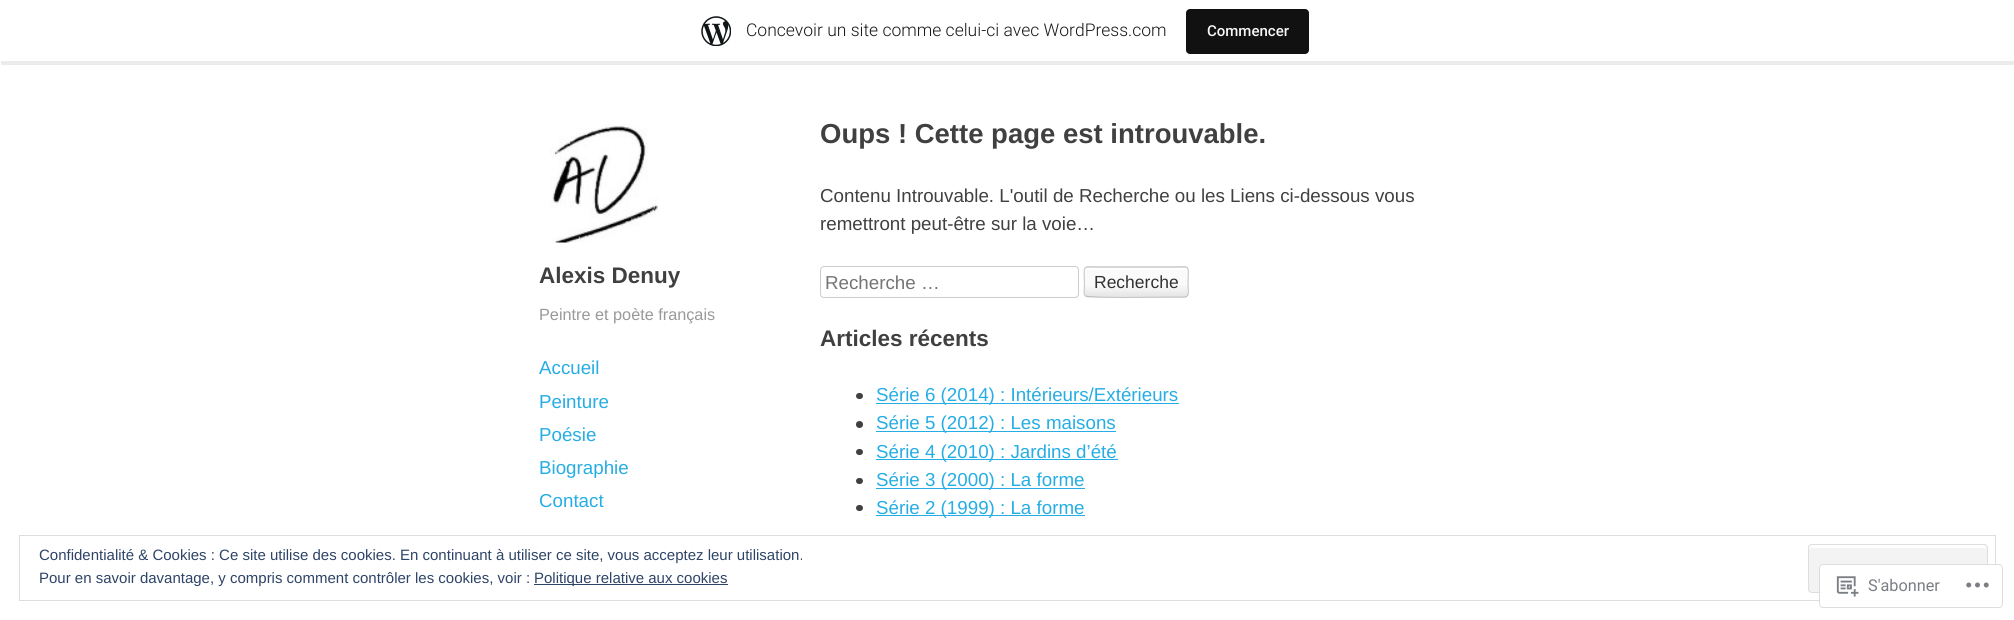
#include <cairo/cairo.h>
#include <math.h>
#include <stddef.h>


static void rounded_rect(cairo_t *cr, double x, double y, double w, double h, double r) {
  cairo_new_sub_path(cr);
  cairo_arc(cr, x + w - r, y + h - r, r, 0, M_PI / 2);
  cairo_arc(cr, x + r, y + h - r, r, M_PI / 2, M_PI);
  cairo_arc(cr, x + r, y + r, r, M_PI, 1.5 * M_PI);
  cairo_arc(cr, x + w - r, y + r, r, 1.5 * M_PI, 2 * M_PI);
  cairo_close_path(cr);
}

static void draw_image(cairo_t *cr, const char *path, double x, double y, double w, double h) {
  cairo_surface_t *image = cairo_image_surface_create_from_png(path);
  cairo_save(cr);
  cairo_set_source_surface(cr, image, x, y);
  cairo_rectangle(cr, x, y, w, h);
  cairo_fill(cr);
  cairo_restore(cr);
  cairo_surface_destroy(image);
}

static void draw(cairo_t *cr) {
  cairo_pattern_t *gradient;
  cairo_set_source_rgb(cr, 1, 1, 1);
  cairo_paint(cr);
  cairo_set_source_rgba(cr, 0, 0, 0, 0.08);
  cairo_new_path(cr);
  cairo_move_to(cr, 1, 61);
  cairo_line_to(cr, 1, 65);
  cairo_line_to(cr, 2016, 65);
  cairo_line_to(cr, 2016, 4);
  cairo_line_to(cr, 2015, 4);
  cairo_line_to(cr, 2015, 61);
  cairo_close_path(cr);
  cairo_fill(cr);
  draw_image(cr, "images/1.png", 701, 16, 30, 30);
  cairo_set_source_rgb(cr, 17 / 255.0, 17 / 255.0, 17 / 255.0);
  rounded_rect(cr, 1186, 9, 123, 45, 4);
  cairo_fill(cr);
  draw_image(cr, "images/2.png", 550, 124, 109, 119);
  rounded_rect(cr, 820.5, 266.5, 258, 31, 3.5);
  cairo_set_source_rgb(cr, 204 / 255.0, 204 / 255.0, 204 / 255.0);
  cairo_set_line_width(cr, 1);
  cairo_stroke(cr);
  cairo_save(cr);
  rounded_rect(cr, 1084, 266, 105, 32, 4);
  cairo_clip(cr);
  gradient = cairo_pattern_create_linear(1136, 239, 1136, 268);
  cairo_pattern_add_color_stop_rgba(gradient, 0.6, 250 / 255.0, 250 / 255.0, 250 / 255.0, 1);
  cairo_pattern_add_color_stop_rgba(gradient, 1, 230 / 255.0, 230 / 255.0, 230 / 255.0, 1);
  cairo_set_source(cr, gradient);
  cairo_pattern_destroy(gradient);
  cairo_rectangle(cr, 1084, 266, 105, 2);
  cairo_fill(cr);
  gradient = cairo_pattern_create_linear(1136, 268, 1136, 296);
  cairo_pattern_add_color_stop_rgba(gradient, 0.6, 250 / 255.0, 250 / 255.0, 250 / 255.0, 1);
  cairo_pattern_add_color_stop_rgba(gradient, 1, 230 / 255.0, 230 / 255.0, 230 / 255.0, 1);
  cairo_set_source(cr, gradient);
  cairo_pattern_destroy(gradient);
  cairo_rectangle(cr, 1084, 268, 105, 28);
  cairo_fill(cr);
  gradient = cairo_pattern_create_linear(1136, 296, 1136, 325);
  cairo_pattern_add_color_stop_rgba(gradient, 0.6, 250 / 255.0, 250 / 255.0, 250 / 255.0, 1);
  cairo_pattern_add_color_stop_rgba(gradient, 1, 230 / 255.0, 230 / 255.0, 230 / 255.0, 1);
  cairo_set_source(cr, gradient);
  cairo_pattern_destroy(gradient);
  cairo_rectangle(cr, 1084, 296, 105, 2);
  cairo_fill(cr);
  cairo_restore(cr);
  cairo_set_source_rgb(cr, 1, 1, 1);
  cairo_new_path(cr);
  cairo_move_to(cr, 1088, 270);
  cairo_line_to(cr, 1185, 270);
  cairo_curve_to(cr, 1186, 270, 1188, 271, 1188, 272);
  cairo_line_to(cr, 1188, 270);
  cairo_curve_to(cr, 1188, 269, 1187, 268, 1186, 268);
  cairo_line_to(cr, 1088, 268);
  cairo_curve_to(cr, 1086, 268, 1085, 269, 1085, 270);
  cairo_line_to(cr, 1085, 272);
  cairo_curve_to(cr, 1085, 271, 1086, 270, 1088, 270);
  cairo_close_path(cr);
  cairo_fill(cr);
  cairo_new_path(cr);
  cairo_move_to(cr, 1187, 296);
  cairo_line_to(cr, 1185, 297);
  cairo_line_to(cr, 1169, 297);
  cairo_curve_to(cr, 1160, 297, 1087.5, 298, 1085.5, 296);
  cairo_set_source_rgb(cr, 187 / 255.0, 187 / 255.0, 187 / 255.0);
  cairo_set_line_width(cr, 1.2);
  cairo_stroke(cr);
  cairo_new_path(cr);
  cairo_move_to(cr, 1085.5, 296);
  cairo_curve_to(cr, 1083, 294, 1084.5, 288, 1084.5, 286);
  cairo_curve_to(cr, 1084.5, 263, 1080, 267, 1104, 267);
  cairo_line_to(cr, 1169, 267);
  cairo_curve_to(cr, 1192.5, 267, 1188, 263, 1188, 286);
  cairo_curve_to(cr, 1188, 288, 1189.5, 294, 1187, 296);
  cairo_set_source_rgb(cr, 204 / 255.0, 204 / 255.0, 204 / 255.0);
  cairo_stroke(cr);
  cairo_set_source_rgb(cr, 64 / 255.0, 64 / 255.0, 64 / 255.0);
  rounded_rect(cr, 856, 393, 7, 6, 3);
  cairo_fill(cr);
  cairo_set_source_rgb(cr, 38 / 255.0, 173 / 255.0, 228 / 255.0);
  cairo_rectangle(cr, 876, 403, 303, 1);
  cairo_fill(cr);
  cairo_set_source_rgb(cr, 64 / 255.0, 64 / 255.0, 64 / 255.0);
  cairo_arc(cr, 859.5, 424.5, 3.5, 0, 2 * M_PI);
  cairo_fill(cr);
  cairo_set_source_rgb(cr, 38 / 255.0, 173 / 255.0, 228 / 255.0);
  cairo_rectangle(cr, 876, 431, 240, 1);
  cairo_fill(cr);
  cairo_set_source_rgb(cr, 64 / 255.0, 64 / 255.0, 64 / 255.0);
  rounded_rect(cr, 856, 449, 7, 6, 3);
  cairo_fill(cr);
  cairo_set_source_rgb(cr, 38 / 255.0, 173 / 255.0, 228 / 255.0);
  cairo_rectangle(cr, 876, 459, 242, 1);
  cairo_fill(cr);
  cairo_set_source_rgb(cr, 64 / 255.0, 64 / 255.0, 64 / 255.0);
  rounded_rect(cr, 856, 478, 7, 6, 3);
  cairo_fill(cr);
  cairo_set_source_rgb(cr, 38 / 255.0, 173 / 255.0, 228 / 255.0);
  cairo_rectangle(cr, 876, 488, 209, 1);
  cairo_fill(cr);
  cairo_set_source_rgb(cr, 64 / 255.0, 64 / 255.0, 64 / 255.0);
  rounded_rect(cr, 856, 505, 7, 6, 3);
  cairo_fill(cr);
  cairo_set_source_rgb(cr, 38 / 255.0, 173 / 255.0, 228 / 255.0);
  cairo_rectangle(cr, 876, 515, 209, 1);
  cairo_fill(cr);
  cairo_rectangle(cr, 19.5, 535.5, 1976, 65);
  cairo_set_source_rgb(cr, 222 / 255.0, 222 / 255.0, 222 / 255.0);
  cairo_set_line_width(cr, 1);
  cairo_stroke(cr);
  cairo_set_source_rgb(cr, 243 / 255.0, 243 / 255.0, 243 / 255.0);
  rounded_rect(cr, 1808, 544, 180, 49, 4);
  cairo_fill(cr);
  cairo_set_source_rgb(cr, 1, 1, 1);
  cairo_new_path(cr);
  cairo_move_to(cr, 1811, 548);
  cairo_line_to(cr, 1984, 548);
  cairo_curve_to(cr, 1985, 548, 1986, 549, 1986, 550);
  cairo_curve_to(cr, 1986, 548, 1986, 545, 1984, 545);
  cairo_line_to(cr, 1811, 545);
  cairo_curve_to(cr, 1809, 546, 1809, 548, 1809, 550);
  cairo_curve_to(cr, 1809, 549, 1810, 548, 1811, 548);
  cairo_close_path(cr);
  cairo_fill(cr);
  rounded_rect(cr, 1808.5, 544.5, 179, 48, 3.5);
  cairo_set_source_rgb(cr, 222 / 255.0, 222 / 255.0, 222 / 255.0);
  cairo_stroke(cr);
  cairo_set_source_rgb(cr, 46 / 255.0, 68 / 255.0, 103 / 255.0);
  cairo_rectangle(cr, 534, 584, 194, 1);
  cairo_fill(cr);
  cairo_set_source_rgba(cr, 1, 1, 1, 0.98);
  rounded_rect(cr, 1819, 564, 184, 44, 4);
  cairo_fill(cr);
  rounded_rect(cr, 1819.5, 564.5, 183, 43, 3.5);
  cairo_set_source_rgba(cr, 220 / 255.0, 220 / 255.0, 222 / 255.0, 0.98);
  cairo_stroke(cr);
  draw_image(cr, "images/3.png", 1836, 576, 23, 21);
  draw_image(cr, "images/4.png", 1966, 582, 23, 6);
  cairo_select_font_face(cr, "Roboto Light", CAIRO_FONT_SLANT_NORMAL, CAIRO_FONT_WEIGHT_NORMAL);
  cairo_set_font_size(cr, 17.5);
  cairo_set_source_rgb(cr, 23 / 255.0, 23 / 255.0, 23 / 255.0);
  cairo_move_to(cr, 746, 36);
  cairo_show_text(cr, "Concevoir un site comme celui-ci avec WordPress.com");
  cairo_select_font_face(cr, "Roboto Medium", CAIRO_FONT_SLANT_NORMAL, CAIRO_FONT_WEIGHT_NORMAL);
  cairo_set_font_size(cr, 15);
  cairo_set_source_rgb(cr, 246 / 255.0, 247 / 255.0, 247 / 255.0);
  cairo_move_to(cr, 1207, 36);
  cairo_show_text(cr, "Commencer");
  cairo_select_font_face(cr, "Liberation Sans", CAIRO_FONT_SLANT_NORMAL, CAIRO_FONT_WEIGHT_BOLD);
  cairo_set_font_size(cr, 22.5);
  cairo_set_source_rgb(cr, 64 / 255.0, 64 / 255.0, 64 / 255.0);
  cairo_move_to(cr, 539, 283);
  cairo_show_text(cr, "Alexis Denuy");
  cairo_select_font_face(cr, "Liberation Sans", CAIRO_FONT_SLANT_NORMAL, CAIRO_FONT_WEIGHT_NORMAL);
  cairo_set_font_size(cr, 16.25);
  cairo_set_source_rgb(cr, 153 / 255.0, 153 / 255.0, 153 / 255.0);
  cairo_move_to(cr, 539, 320);
  cairo_show_text(cr, "Peintre et poète français");
  cairo_set_font_size(cr, 18.75);
  cairo_set_source_rgb(cr, 38 / 255.0, 173 / 255.0, 228 / 255.0);
  cairo_move_to(cr, 539, 374);
  cairo_show_text(cr, "Accueil");
  cairo_move_to(cr, 539, 408);
  cairo_show_text(cr, "Peinture");
  cairo_move_to(cr, 539, 441);
  cairo_show_text(cr, "Poésie");
  cairo_move_to(cr, 539, 474);
  cairo_show_text(cr, "Biographie");
  cairo_move_to(cr, 539, 507);
  cairo_show_text(cr, "Contact");
  cairo_select_font_face(cr, "Liberation Sans", CAIRO_FONT_SLANT_NORMAL, CAIRO_FONT_WEIGHT_BOLD);
  cairo_set_font_size(cr, 27.5);
  cairo_set_source_rgb(cr, 64 / 255.0, 64 / 255.0, 64 / 255.0);
  cairo_move_to(cr, 820, 143);
  cairo_show_text(cr, "Oups ! Cette page est introuvable.");
  cairo_select_font_face(cr, "Liberation Sans", CAIRO_FONT_SLANT_NORMAL, CAIRO_FONT_WEIGHT_NORMAL);
  cairo_set_font_size(cr, 18.75);
  cairo_move_to(cr, 820, 202);
  cairo_show_text(cr, "Contenu Introuvable. L'outil de Recherche ou les Liens ci-dessous vous");
  cairo_move_to(cr, 820, 230);
  cairo_show_text(cr, "remettront peut-être sur la voie…");
  cairo_set_source_rgb(cr, 117 / 255.0, 117 / 255.0, 117 / 255.0);
  cairo_move_to(cr, 825, 289);
  cairo_show_text(cr, "Recherche …");
  cairo_set_font_size(cr, 17.5);
  cairo_set_source_rgb(cr, 50 / 255.0, 50 / 255.0, 50 / 255.0);
  cairo_move_to(cr, 1094, 288);
  cairo_show_text(cr, "Recherche");
  cairo_select_font_face(cr, "Liberation Sans", CAIRO_FONT_SLANT_NORMAL, CAIRO_FONT_WEIGHT_BOLD);
  cairo_set_font_size(cr, 22.5);
  cairo_set_source_rgb(cr, 64 / 255.0, 64 / 255.0, 64 / 255.0);
  cairo_move_to(cr, 820, 346);
  cairo_show_text(cr, "Articles récents");
  cairo_select_font_face(cr, "Liberation Sans", CAIRO_FONT_SLANT_NORMAL, CAIRO_FONT_WEIGHT_NORMAL);
  cairo_set_font_size(cr, 18.75);
  cairo_set_source_rgb(cr, 38 / 255.0, 173 / 255.0, 228 / 255.0);
  cairo_move_to(cr, 876, 401);
  cairo_show_text(cr, "Série 6 (2014) : Intérieurs/Extérieurs");
  cairo_move_to(cr, 876, 429);
  cairo_show_text(cr, "Série 5 (2012) : Les maisons");
  cairo_move_to(cr, 876, 458);
  cairo_show_text(cr, "Série 4 (2010) : Jardins d’été");
  cairo_move_to(cr, 876, 486);
  cairo_show_text(cr, "Série 3 (2000) : La forme");
  cairo_move_to(cr, 876, 514);
  cairo_show_text(cr, "Série 2 (1999) : La forme");
  cairo_set_font_size(cr, 15);
  cairo_set_source_rgb(cr, 46 / 255.0, 68 / 255.0, 103 / 255.0);
  cairo_move_to(cr, 39, 560);
  cairo_show_text(cr, "Confidentialité & Cookies : Ce site utilise des cookies. En continuant à utiliser ce site, vous acceptez leur utilisation.");
  cairo_move_to(cr, 39, 583);
  cairo_show_text(cr, "Pour en savoir davantage, y compris comment contrôler les cookies, voir :");
  cairo_move_to(cr, 534, 583);
  cairo_show_text(cr, "Politique relative aux cookies");
  cairo_select_font_face(cr, "Roboto", CAIRO_FONT_SLANT_NORMAL, CAIRO_FONT_WEIGHT_NORMAL);
  cairo_set_font_size(cr, 16.25);
  cairo_set_source_rgb(cr, 122 / 255.0, 126 / 255.0, 132 / 255.0);
  cairo_move_to(cr, 1868, 591);
  cairo_show_text(cr, "S'abonner");
}

int main(void) {
  cairo_surface_t *surface = cairo_image_surface_create(CAIRO_FORMAT_RGB24, 2014, 620);
  cairo_t *cr = cairo_create(surface);
  cairo_font_options_t *options = cairo_font_options_create();
  cairo_font_options_set_hint_metrics(options, CAIRO_HINT_METRICS_OFF);
  cairo_font_options_set_hint_style(options, CAIRO_HINT_STYLE_NONE);
  cairo_set_font_options(cr, options);
  cairo_set_miter_limit(cr, 4);
  draw(cr);
  cairo_surface_write_to_png(surface, "out.png");
  cairo_font_options_destroy(options);
  cairo_destroy(cr);
  cairo_surface_destroy(surface);
  return 0;
}
